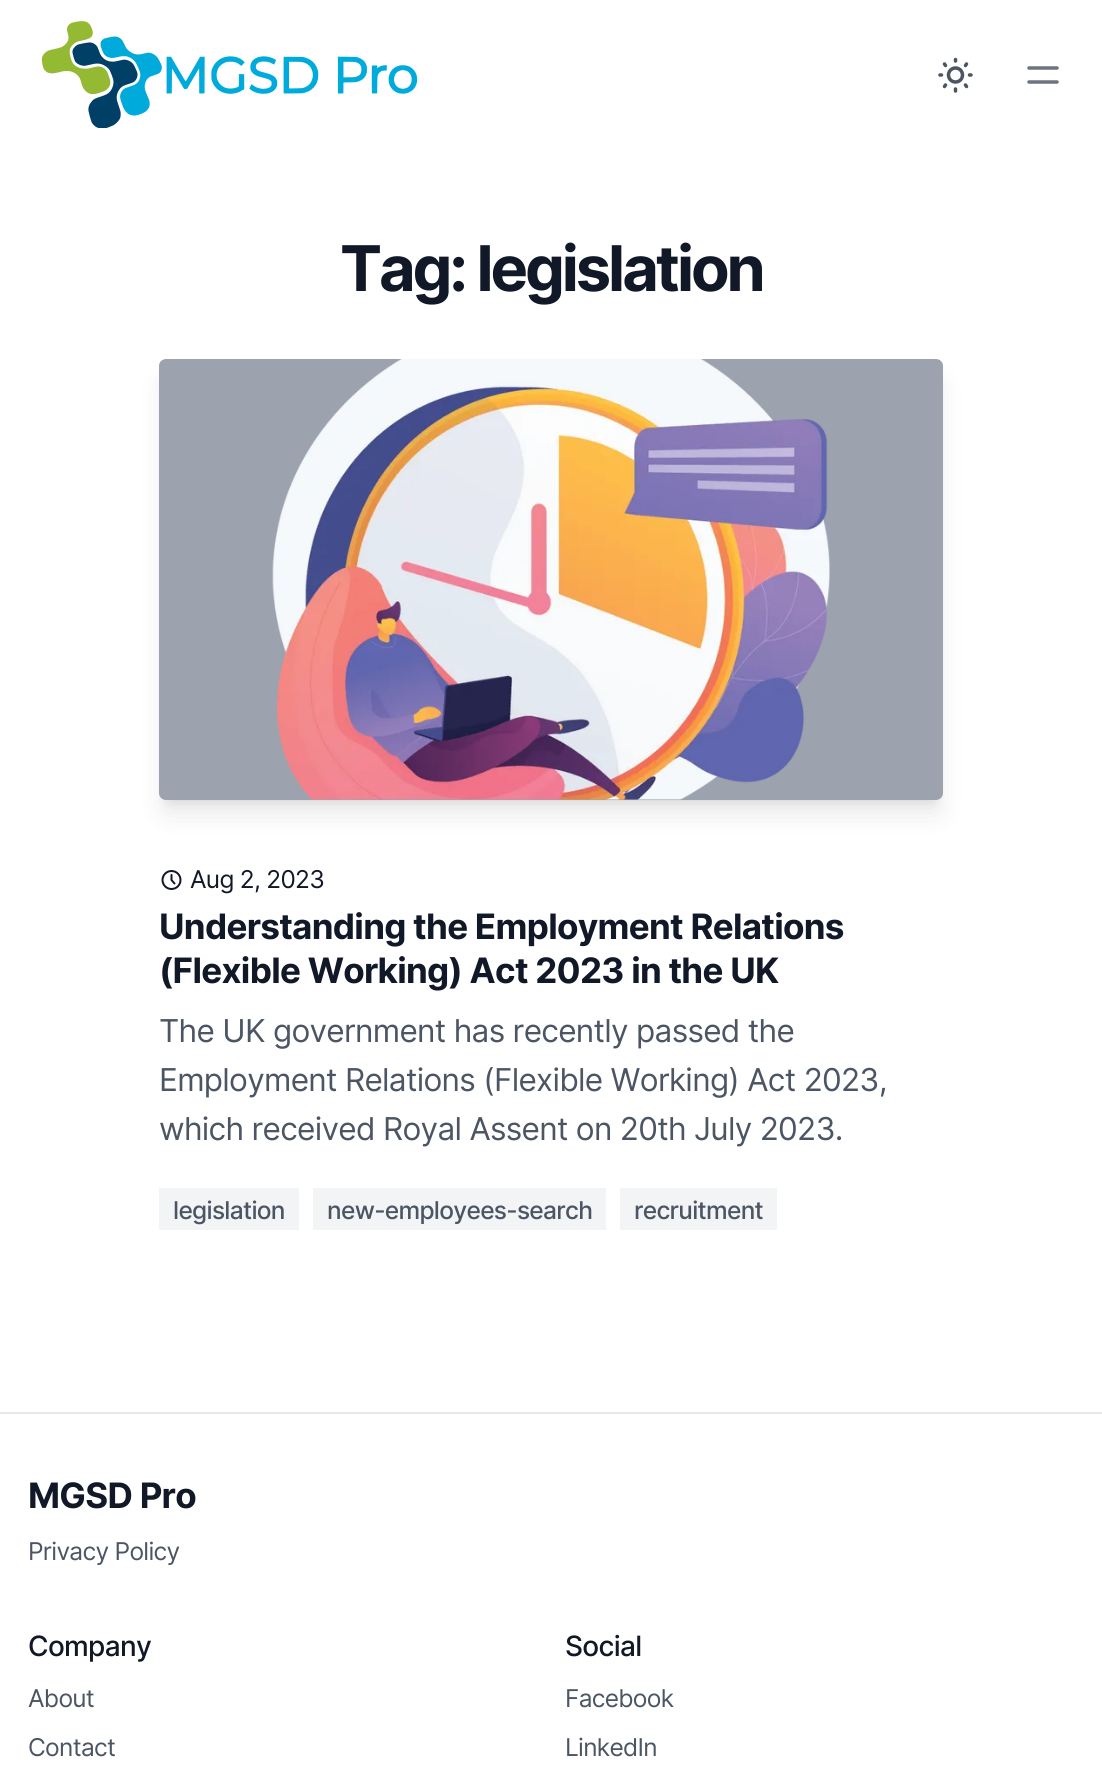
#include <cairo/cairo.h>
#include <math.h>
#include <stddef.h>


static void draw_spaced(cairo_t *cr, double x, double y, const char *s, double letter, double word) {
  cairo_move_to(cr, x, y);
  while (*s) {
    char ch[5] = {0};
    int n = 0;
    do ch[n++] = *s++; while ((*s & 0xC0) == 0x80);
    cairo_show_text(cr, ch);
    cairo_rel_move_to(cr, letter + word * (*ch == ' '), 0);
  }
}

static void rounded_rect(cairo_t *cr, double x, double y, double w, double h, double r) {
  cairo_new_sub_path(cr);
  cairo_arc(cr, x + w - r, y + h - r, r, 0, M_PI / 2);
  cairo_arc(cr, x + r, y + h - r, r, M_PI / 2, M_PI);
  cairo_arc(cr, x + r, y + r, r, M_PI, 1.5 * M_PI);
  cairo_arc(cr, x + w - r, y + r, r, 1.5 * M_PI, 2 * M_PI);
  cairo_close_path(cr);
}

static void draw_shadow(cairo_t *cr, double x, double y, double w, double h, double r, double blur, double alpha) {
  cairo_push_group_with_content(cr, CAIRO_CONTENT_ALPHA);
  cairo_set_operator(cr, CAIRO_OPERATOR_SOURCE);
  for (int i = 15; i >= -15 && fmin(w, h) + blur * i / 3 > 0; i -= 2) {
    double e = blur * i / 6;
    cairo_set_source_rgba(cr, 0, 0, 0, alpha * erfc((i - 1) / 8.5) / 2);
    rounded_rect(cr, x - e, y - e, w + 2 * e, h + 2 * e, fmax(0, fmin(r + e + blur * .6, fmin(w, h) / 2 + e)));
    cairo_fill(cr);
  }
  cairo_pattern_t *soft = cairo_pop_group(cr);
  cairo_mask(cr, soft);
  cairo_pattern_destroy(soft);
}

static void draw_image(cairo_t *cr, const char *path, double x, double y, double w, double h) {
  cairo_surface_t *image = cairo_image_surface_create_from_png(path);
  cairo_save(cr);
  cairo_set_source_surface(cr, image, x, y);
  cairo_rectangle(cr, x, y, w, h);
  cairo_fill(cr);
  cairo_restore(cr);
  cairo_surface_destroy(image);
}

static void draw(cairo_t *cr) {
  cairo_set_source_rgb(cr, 1, 1, 1);
  cairo_paint(cr);
  draw_image(cr, "images/1.png", 41, 21, 377, 107);
  cairo_arc(cr, 955.5, 75, 7, 0, 2 * M_PI);
  cairo_set_source_rgb(cr, 75 / 255.0, 85 / 255.0, 99 / 255.0);
  cairo_set_line_width(cr, 3.5);
  cairo_stroke(cr);
  cairo_new_path(cr);
  cairo_move_to(cr, 940, 75);
  cairo_line_to(cr, 941.5, 75);
  cairo_move_to(cr, 955.5, 59.5);
  cairo_line_to(cr, 955.5, 61);
  cairo_move_to(cr, 969.5, 75);
  cairo_line_to(cr, 971, 75);
  cairo_move_to(cr, 955.5, 89);
  cairo_line_to(cr, 955.5, 91);
  cairo_move_to(cr, 944.5, 64);
  cairo_line_to(cr, 945.5, 65.5);
  cairo_move_to(cr, 966.5, 64);
  cairo_line_to(cr, 965.5, 65.5);
  cairo_move_to(cr, 965.5, 85);
  cairo_line_to(cr, 966.5, 86.5);
  cairo_move_to(cr, 945.5, 85);
  cairo_line_to(cr, 944.5, 86.5);
  cairo_set_line_cap(cr, CAIRO_LINE_CAP_ROUND);
  cairo_set_line_join(cr, CAIRO_LINE_JOIN_ROUND);
  cairo_stroke(cr);
  cairo_new_path(cr);
  cairo_move_to(cr, 1029, 68);
  cairo_line_to(cr, 1057, 68);
  cairo_move_to(cr, 1029, 82);
  cairo_line_to(cr, 1057, 82);
  cairo_set_source_rgb(cr, 107 / 255.0, 114 / 255.0, 128 / 255.0);
  cairo_stroke(cr);
  cairo_set_source_rgb(cr, 0, 0, 0);
  draw_shadow(cr, 166, 373, 770, 427, 0, 5, 0.1);
  draw_shadow(cr, 165, 382, 773, 430, 2, 13, 0.1);
  cairo_set_source_rgb(cr, 156 / 255.0, 163 / 255.0, 175 / 255.0);
  rounded_rect(cr, 159, 359, 784, 441, 7);
  cairo_fill(cr);
  draw_image(cr, "images/2.png", 272, 359, 558, 441);
  cairo_arc(cr, 171.5, 880, 9, 0, 2 * M_PI);
  cairo_set_source_rgb(cr, 17 / 255.0, 24 / 255.0, 39 / 255.0);
  cairo_set_line_width(cr, 2);
  cairo_set_line_cap(cr, CAIRO_LINE_CAP_BUTT);
  cairo_set_line_join(cr, CAIRO_LINE_JOIN_MITER);
  cairo_stroke(cr);
  cairo_new_path(cr);
  cairo_move_to(cr, 171.5, 875);
  cairo_line_to(cr, 171.5, 880);
  cairo_line_to(cr, 174.5, 883.5);
  cairo_set_line_cap(cr, CAIRO_LINE_CAP_ROUND);
  cairo_set_line_join(cr, CAIRO_LINE_JOIN_ROUND);
  cairo_stroke(cr);
  cairo_set_source_rgb(cr, 243 / 255.0, 244 / 255.0, 246 / 255.0);
  cairo_rectangle(cr, 159, 1188, 140, 42);
  cairo_fill(cr);
  cairo_rectangle(cr, 313, 1188, 293, 42);
  cairo_fill(cr);
  cairo_rectangle(cr, 620, 1188, 157, 42);
  cairo_fill(cr);
  cairo_set_source_rgb(cr, 229 / 255.0, 231 / 255.0, 235 / 255.0);
  cairo_rectangle(cr, 0, 1412, 1102, 2);
  cairo_fill(cr);
  cairo_select_font_face(cr, "Inter", CAIRO_FONT_SLANT_NORMAL, CAIRO_FONT_WEIGHT_BOLD);
  cairo_set_font_size(cr, 63);
  cairo_set_source_rgb(cr, 17 / 255.0, 24 / 255.0, 39 / 255.0);
  draw_spaced(cr, 340, 291, "Tag: legislation", -3.1, 0);
  cairo_select_font_face(cr, "Inter", CAIRO_FONT_SLANT_NORMAL, CAIRO_FONT_WEIGHT_NORMAL);
  cairo_set_font_size(cr, 24.5);
  draw_spaced(cr, 190, 888, "Aug 2, 2023", -0.7, 0);
  cairo_select_font_face(cr, "Inter", CAIRO_FONT_SLANT_NORMAL, CAIRO_FONT_WEIGHT_BOLD);
  cairo_set_font_size(cr, 35);
  draw_spaced(cr, 159, 939, "Understanding the Employment Relations", -0.7, 0);
  draw_spaced(cr, 159, 983, "(Flexible Working) Act 2023 in the UK", -0.7, 0);
  cairo_select_font_face(cr, "Inter", CAIRO_FONT_SLANT_NORMAL, CAIRO_FONT_WEIGHT_NORMAL);
  cairo_set_font_size(cr, 31.5);
  cairo_set_source_rgb(cr, 75 / 255.0, 85 / 255.0, 99 / 255.0);
  draw_spaced(cr, 159, 1042, "The UK government has recently passed the", -0.7, 0);
  draw_spaced(cr, 159, 1091, "Employment Relations (Flexible Working) Act 2023,", -0.7, 0);
  draw_spaced(cr, 159, 1140, "which received Royal Assent on 20th July 2023.", -0.7, 0);
  cairo_select_font_face(cr, "Inter Medium", CAIRO_FONT_SLANT_NORMAL, CAIRO_FONT_WEIGHT_NORMAL);
  cairo_set_font_size(cr, 24.5);
  draw_spaced(cr, 173, 1219, "legislation", -0.7, 0);
  draw_spaced(cr, 327, 1219, "new-employees-search", -0.7, 0);
  draw_spaced(cr, 634, 1219, "recruitment", -0.7, 0);
  cairo_select_font_face(cr, "Inter", CAIRO_FONT_SLANT_NORMAL, CAIRO_FONT_WEIGHT_BOLD);
  cairo_set_font_size(cr, 35);
  cairo_set_source_rgb(cr, 17 / 255.0, 24 / 255.0, 39 / 255.0);
  draw_spaced(cr, 28, 1508, "MGSD Pro", -0.7, 0);
  cairo_select_font_face(cr, "Inter", CAIRO_FONT_SLANT_NORMAL, CAIRO_FONT_WEIGHT_NORMAL);
  cairo_set_font_size(cr, 24.5);
  cairo_set_source_rgb(cr, 75 / 255.0, 85 / 255.0, 99 / 255.0);
  draw_spaced(cr, 28, 1560, "Privacy Policy", -0.7, 0);
  cairo_select_font_face(cr, "Inter Medium", CAIRO_FONT_SLANT_NORMAL, CAIRO_FONT_WEIGHT_NORMAL);
  cairo_set_font_size(cr, 28);
  cairo_set_source_rgb(cr, 17 / 255.0, 24 / 255.0, 39 / 255.0);
  draw_spaced(cr, 28, 1656, "Company", -0.7, 0);
  cairo_select_font_face(cr, "Inter", CAIRO_FONT_SLANT_NORMAL, CAIRO_FONT_WEIGHT_NORMAL);
  cairo_set_font_size(cr, 24.5);
  cairo_set_source_rgb(cr, 75 / 255.0, 85 / 255.0, 99 / 255.0);
  draw_spaced(cr, 28, 1707, "About", -0.7, 0);
  draw_spaced(cr, 28, 1756, "Contact", -0.7, 0);
  cairo_select_font_face(cr, "Inter Medium", CAIRO_FONT_SLANT_NORMAL, CAIRO_FONT_WEIGHT_NORMAL);
  cairo_set_font_size(cr, 28);
  cairo_set_source_rgb(cr, 17 / 255.0, 24 / 255.0, 39 / 255.0);
  draw_spaced(cr, 565, 1656, "Social", -0.7, 0);
  cairo_select_font_face(cr, "Inter", CAIRO_FONT_SLANT_NORMAL, CAIRO_FONT_WEIGHT_NORMAL);
  cairo_set_font_size(cr, 24.5);
  cairo_set_source_rgb(cr, 75 / 255.0, 85 / 255.0, 99 / 255.0);
  draw_spaced(cr, 565, 1707, "Facebook", -0.7, 0);
  draw_spaced(cr, 565, 1756, "LinkedIn", -0.7, 0);
}

int main(void) {
  cairo_surface_t *surface = cairo_image_surface_create(CAIRO_FORMAT_RGB24, 1102, 1790);
  cairo_t *cr = cairo_create(surface);
  cairo_font_options_t *options = cairo_font_options_create();
  cairo_font_options_set_hint_metrics(options, CAIRO_HINT_METRICS_OFF);
  cairo_font_options_set_hint_style(options, CAIRO_HINT_STYLE_NONE);
  cairo_set_font_options(cr, options);
  cairo_set_miter_limit(cr, 4);
  draw(cr);
  cairo_surface_write_to_png(surface, "out.png");
  cairo_font_options_destroy(options);
  cairo_destroy(cr);
  cairo_surface_destroy(surface);
  return 0;
}
